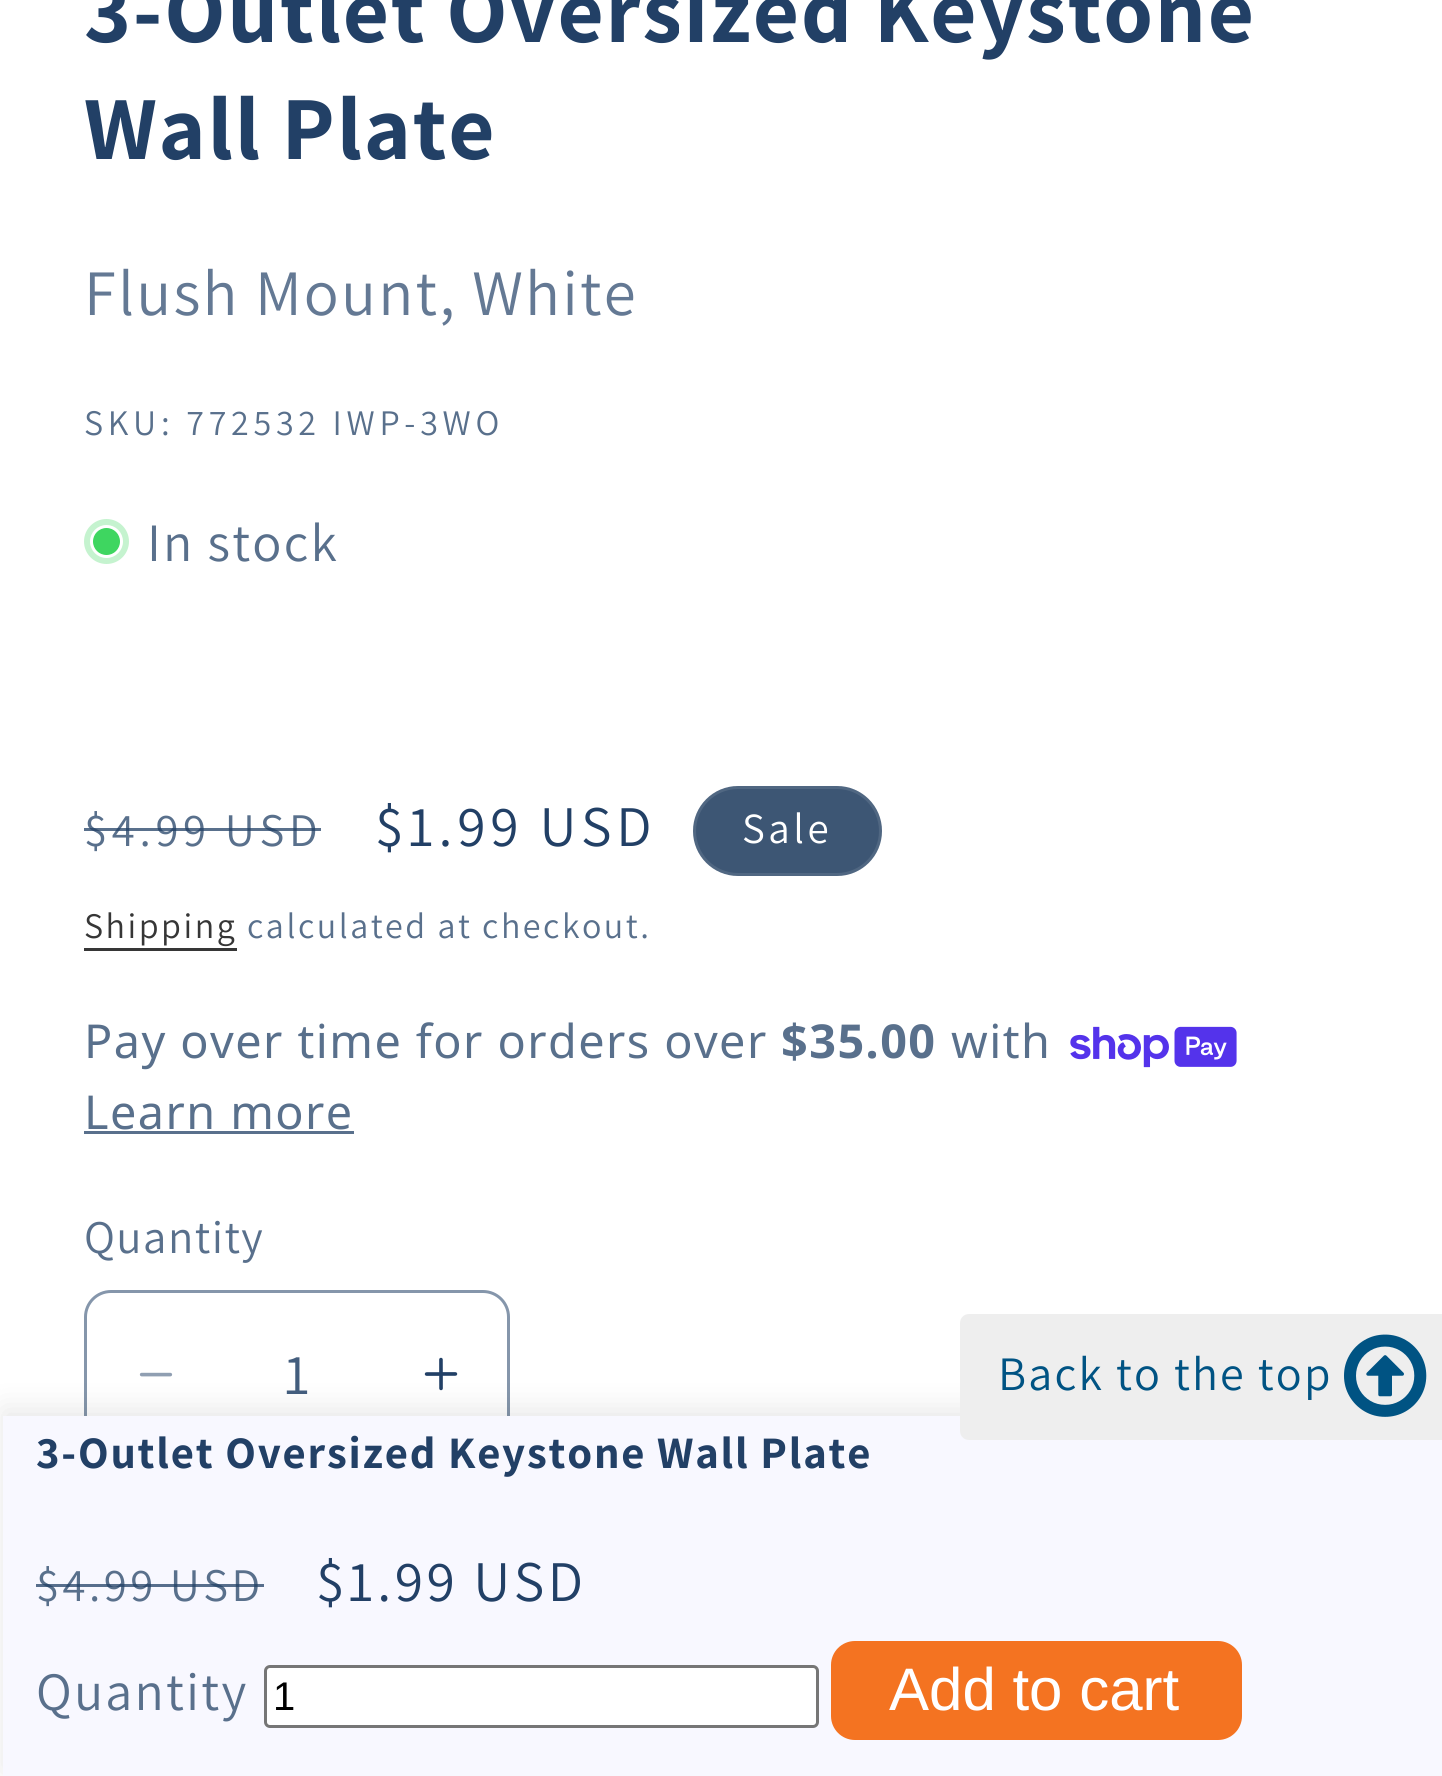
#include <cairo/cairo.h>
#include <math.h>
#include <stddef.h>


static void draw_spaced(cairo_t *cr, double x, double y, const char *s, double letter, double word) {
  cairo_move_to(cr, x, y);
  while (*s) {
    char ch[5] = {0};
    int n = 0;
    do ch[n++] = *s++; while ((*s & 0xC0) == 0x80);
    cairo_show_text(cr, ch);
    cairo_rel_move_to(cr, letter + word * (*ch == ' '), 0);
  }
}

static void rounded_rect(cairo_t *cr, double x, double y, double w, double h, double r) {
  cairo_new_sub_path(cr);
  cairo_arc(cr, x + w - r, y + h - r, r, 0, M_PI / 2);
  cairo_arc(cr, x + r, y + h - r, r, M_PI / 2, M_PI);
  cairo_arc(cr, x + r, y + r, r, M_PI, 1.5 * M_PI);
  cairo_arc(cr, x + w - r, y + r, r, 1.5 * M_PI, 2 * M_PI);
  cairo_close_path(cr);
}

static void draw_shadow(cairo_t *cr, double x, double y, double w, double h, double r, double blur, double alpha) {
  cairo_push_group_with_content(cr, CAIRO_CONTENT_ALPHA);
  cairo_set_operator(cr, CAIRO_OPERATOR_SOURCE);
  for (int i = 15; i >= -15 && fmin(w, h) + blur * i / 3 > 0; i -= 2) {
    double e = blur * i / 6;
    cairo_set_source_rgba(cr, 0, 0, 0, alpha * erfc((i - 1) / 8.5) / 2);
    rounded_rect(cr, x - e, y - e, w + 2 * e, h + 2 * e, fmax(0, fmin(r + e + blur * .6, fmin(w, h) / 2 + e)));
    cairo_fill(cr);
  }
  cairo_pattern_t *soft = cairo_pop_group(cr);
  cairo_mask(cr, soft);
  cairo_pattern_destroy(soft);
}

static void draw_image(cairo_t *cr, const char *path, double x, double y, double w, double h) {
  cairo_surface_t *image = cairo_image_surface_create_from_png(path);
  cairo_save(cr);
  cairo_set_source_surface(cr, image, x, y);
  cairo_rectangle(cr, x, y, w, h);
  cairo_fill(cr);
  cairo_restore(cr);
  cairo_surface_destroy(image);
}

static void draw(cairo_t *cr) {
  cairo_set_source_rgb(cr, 1, 1, 1);
  cairo_paint(cr);
  cairo_set_source_rgb(cr, 197 / 255.0, 243 / 255.0, 207 / 255.0);
  cairo_arc(cr, 106.5, 541.5, 22.5, 0, 2 * M_PI);
  cairo_fill(cr);
  cairo_set_source_rgb(cr, 62 / 255.0, 214 / 255.0, 96 / 255.0);
  cairo_arc(cr, 106.5, 541.5, 15, 0, 2 * M_PI);
  cairo_fill_preserve(cr);
  cairo_set_source_rgb(cr, 1, 1, 1);
  cairo_set_line_width(cr, 3);
  cairo_stroke(cr);
  cairo_set_source_rgb(cr, 61 / 255.0, 86 / 255.0, 116 / 255.0);
  rounded_rect(cr, 693, 786, 189, 90, 45);
  cairo_fill(cr);
  rounded_rect(cr, 694.5, 787.5, 186, 87, 43.5);
  cairo_set_source_rgba(cr, 1, 1, 1, 0.1);
  cairo_stroke(cr);
  cairo_set_source_rgb(cr, 54 / 255.0, 54 / 255.0, 54 / 255.0);
  cairo_rectangle(cr, 84, 948, 153, 3);
  cairo_fill(cr);
  draw_image(cr, "images/1.png", 1070, 1026, 167, 42);
  cairo_set_source_rgb(cr, 89 / 255.0, 112 / 255.0, 140 / 255.0);
  cairo_rectangle(cr, 84, 1131, 270, 3);
  cairo_fill(cr);
  draw_image(cr, "images/2.png", 139, 1372, 34, 5);
  draw_image(cr, "images/3.png", 424, 1357, 34, 34);
  rounded_rect(cr, 85.5, 1291.5, 423, 165, 25.5);
  cairo_set_source_rgb(cr, 133 / 255.0, 150 / 255.0, 171 / 255.0);
  cairo_stroke(cr);
  cairo_set_source_rgb(cr, 0, 0, 0);
  draw_shadow(cr, 3, 1410, 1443, 360, 0, 15, 0.1);
  cairo_set_source_rgb(cr, 248 / 255.0, 248 / 255.0, 1);
  cairo_rectangle(cr, 3, 1416, 1439, 360);
  cairo_fill(cr);
  cairo_set_source_rgb(cr, 1, 1, 1);
  rounded_rect(cr, 265.5, 1666.5, 552, 60, 4.5);
  cairo_fill_preserve(cr);
  cairo_set_source_rgb(cr, 118 / 255.0, 118 / 255.0, 118 / 255.0);
  cairo_stroke(cr);
  cairo_set_source_rgb(cr, 244 / 255.0, 115 / 255.0, 33 / 255.0);
  rounded_rect(cr, 831, 1641, 411, 99, 24);
  cairo_fill(cr);
  cairo_set_source_rgb(cr, 238 / 255.0, 238 / 255.0, 238 / 255.0);
  cairo_new_path(cr);
  cairo_move_to(cr, 969, 1314);
  cairo_line_to(cr, 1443, 1314);
  cairo_line_to(cr, 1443, 1440);
  cairo_line_to(cr, 969, 1440);
  cairo_curve_to(cr, 964, 1440, 960, 1436, 960, 1431);
  cairo_line_to(cr, 960, 1323);
  cairo_curve_to(cr, 960, 1318, 964, 1314, 969, 1314);
  cairo_close_path(cr);
  cairo_fill(cr);
  draw_image(cr, "images/4.png", 1344, 1334, 83, 83);
  cairo_select_font_face(cr, "Assistant", CAIRO_FONT_SLANT_NORMAL, CAIRO_FONT_WEIGHT_BOLD);
  cairo_set_font_size(cr, 90);
  cairo_set_source_rgb(cr, 34 / 255.0, 64 / 255.0, 102 / 255.0);
  draw_spaced(cr, 84, 42, "3-Outlet Oversized Keystone", 1.8, 0);
  draw_spaced(cr, 84, 159, "Wall Plate", 1.8, 0);
  cairo_select_font_face(cr, "Assistant", CAIRO_FONT_SLANT_NORMAL, CAIRO_FONT_WEIGHT_NORMAL);
  cairo_set_font_size(cr, 64.75);
  cairo_set_source_rgb(cr, 100 / 255.0, 121 / 255.0, 148 / 255.0);
  draw_spaced(cr, 84, 315, "Flush Mount, White", 2.2, 0);
  cairo_set_font_size(cr, 36);
  cairo_set_source_rgb(cr, 89 / 255.0, 112 / 255.0, 140 / 255.0);
  draw_spaced(cr, 84, 435, "SKU: 772532 IWP-3WO", 4.7, 0);
  cairo_set_font_size(cr, 54);
  draw_spaced(cr, 147, 561, "In stock", 2.2, 0);
  cairo_set_font_size(cr, 46.75);
  draw_spaced(cr, 84, 846, "$4.99 USD", 4.7, 0);
  cairo_set_source_rgba(cr, 34 / 255.0, 64 / 255.0, 102 / 255.0, 0.75);
  cairo_rectangle(cr, 84, 828, 237, 3);
  cairo_fill(cr);
  cairo_set_font_size(cr, 57.5);
  cairo_set_source_rgb(cr, 34 / 255.0, 64 / 255.0, 102 / 255.0);
  draw_spaced(cr, 375, 846, "$1.99 USD", 4.7, 0);
  cairo_set_font_size(cr, 43);
  cairo_set_source_rgb(cr, 1, 1, 1);
  draw_spaced(cr, 742, 843, "Sale", 3.5, 0);
  cairo_set_font_size(cr, 36);
  cairo_set_source_rgb(cr, 54 / 255.0, 54 / 255.0, 54 / 255.0);
  draw_spaced(cr, 84, 938, "Shipping", 2.5, 0);
  cairo_set_source_rgb(cr, 89 / 255.0, 112 / 255.0, 140 / 255.0);
  draw_spaced(cr, 247, 938, "calculated at checkout.", 2.5, 0);
  cairo_select_font_face(cr, "Noto Sans", CAIRO_FONT_SLANT_NORMAL, CAIRO_FONT_WEIGHT_NORMAL);
  cairo_set_font_size(cr, 46.75);
  draw_spaced(cr, 84, 1058, "Pay over time for orders over", 1.45, 0);
  cairo_select_font_face(cr, "Noto Sans", CAIRO_FONT_SLANT_NORMAL, CAIRO_FONT_WEIGHT_BOLD);
  draw_spaced(cr, 781, 1058, "$35.00", 1.45, 0);
  cairo_select_font_face(cr, "Noto Sans", CAIRO_FONT_SLANT_NORMAL, CAIRO_FONT_WEIGHT_NORMAL);
  draw_spaced(cr, 951, 1058, "with", 1.45, 0);
  draw_spaced(cr, 84, 1129, "Learn more", 1.45, 0);
  cairo_select_font_face(cr, "Assistant", CAIRO_FONT_SLANT_NORMAL, CAIRO_FONT_WEIGHT_NORMAL);
  draw_spaced(cr, 84, 1253, "Quantity", 1.45, 0);
  cairo_set_font_size(cr, 57.5);
  cairo_set_source_rgb(cr, 67 / 255.0, 93 / 255.0, 125 / 255.0);
  cairo_move_to(cr, 284, 1394);
  cairo_show_text(cr, "1");
  cairo_select_font_face(cr, "Assistant", CAIRO_FONT_SLANT_NORMAL, CAIRO_FONT_WEIGHT_BOLD);
  cairo_set_font_size(cr, 45);
  cairo_set_source_rgb(cr, 34 / 255.0, 64 / 255.0, 102 / 255.0);
  draw_spaced(cr, 36, 1468, "3-Outlet Oversized Keystone Wall Plate", 1.8, 0);
  cairo_select_font_face(cr, "Assistant", CAIRO_FONT_SLANT_NORMAL, CAIRO_FONT_WEIGHT_NORMAL);
  cairo_set_font_size(cr, 46.75);
  cairo_set_source_rgb(cr, 89 / 255.0, 112 / 255.0, 140 / 255.0);
  draw_spaced(cr, 36, 1601, "$4.99 USD", 3.5, 0);
  cairo_set_source_rgba(cr, 34 / 255.0, 64 / 255.0, 102 / 255.0, 0.75);
  cairo_rectangle(cr, 36, 1584, 228, 3);
  cairo_fill(cr);
  cairo_set_font_size(cr, 57.5);
  cairo_set_source_rgb(cr, 34 / 255.0, 64 / 255.0, 102 / 255.0);
  draw_spaced(cr, 316, 1601, "$1.99 USD", 3.5, 0);
  cairo_set_font_size(cr, 54);
  cairo_set_source_rgb(cr, 89 / 255.0, 112 / 255.0, 140 / 255.0);
  draw_spaced(cr, 36, 1710, "Quantity", 2.2, 0);
  cairo_select_font_face(cr, "Liberation Sans", CAIRO_FONT_SLANT_NORMAL, CAIRO_FONT_WEIGHT_NORMAL);
  cairo_set_font_size(cr, 40);
  cairo_set_source_rgb(cr, 0, 0, 0);
  cairo_move_to(cr, 273, 1710);
  cairo_show_text(cr, "1");
  cairo_set_font_size(cr, 60);
  cairo_set_source_rgb(cr, 1, 1, 1);
  cairo_move_to(cr, 889, 1710);
  cairo_show_text(cr, "Add to cart");
  cairo_select_font_face(cr, "Assistant", CAIRO_FONT_SLANT_NORMAL, CAIRO_FONT_WEIGHT_NORMAL);
  cairo_set_font_size(cr, 48);
  cairo_set_source_rgb(cr, 0, 83 / 255.0, 131 / 255.0);
  draw_spaced(cr, 998, 1390, "Back to the top", 2.2, 0);
}

int main(void) {
  cairo_surface_t *surface = cairo_image_surface_create(CAIRO_FORMAT_RGB24, 1442, 1776);
  cairo_t *cr = cairo_create(surface);
  cairo_font_options_t *options = cairo_font_options_create();
  cairo_font_options_set_hint_metrics(options, CAIRO_HINT_METRICS_OFF);
  cairo_font_options_set_hint_style(options, CAIRO_HINT_STYLE_NONE);
  cairo_set_font_options(cr, options);
  cairo_set_miter_limit(cr, 4);
  draw(cr);
  cairo_surface_write_to_png(surface, "out.png");
  cairo_font_options_destroy(options);
  cairo_destroy(cr);
  cairo_surface_destroy(surface);
  return 0;
}
